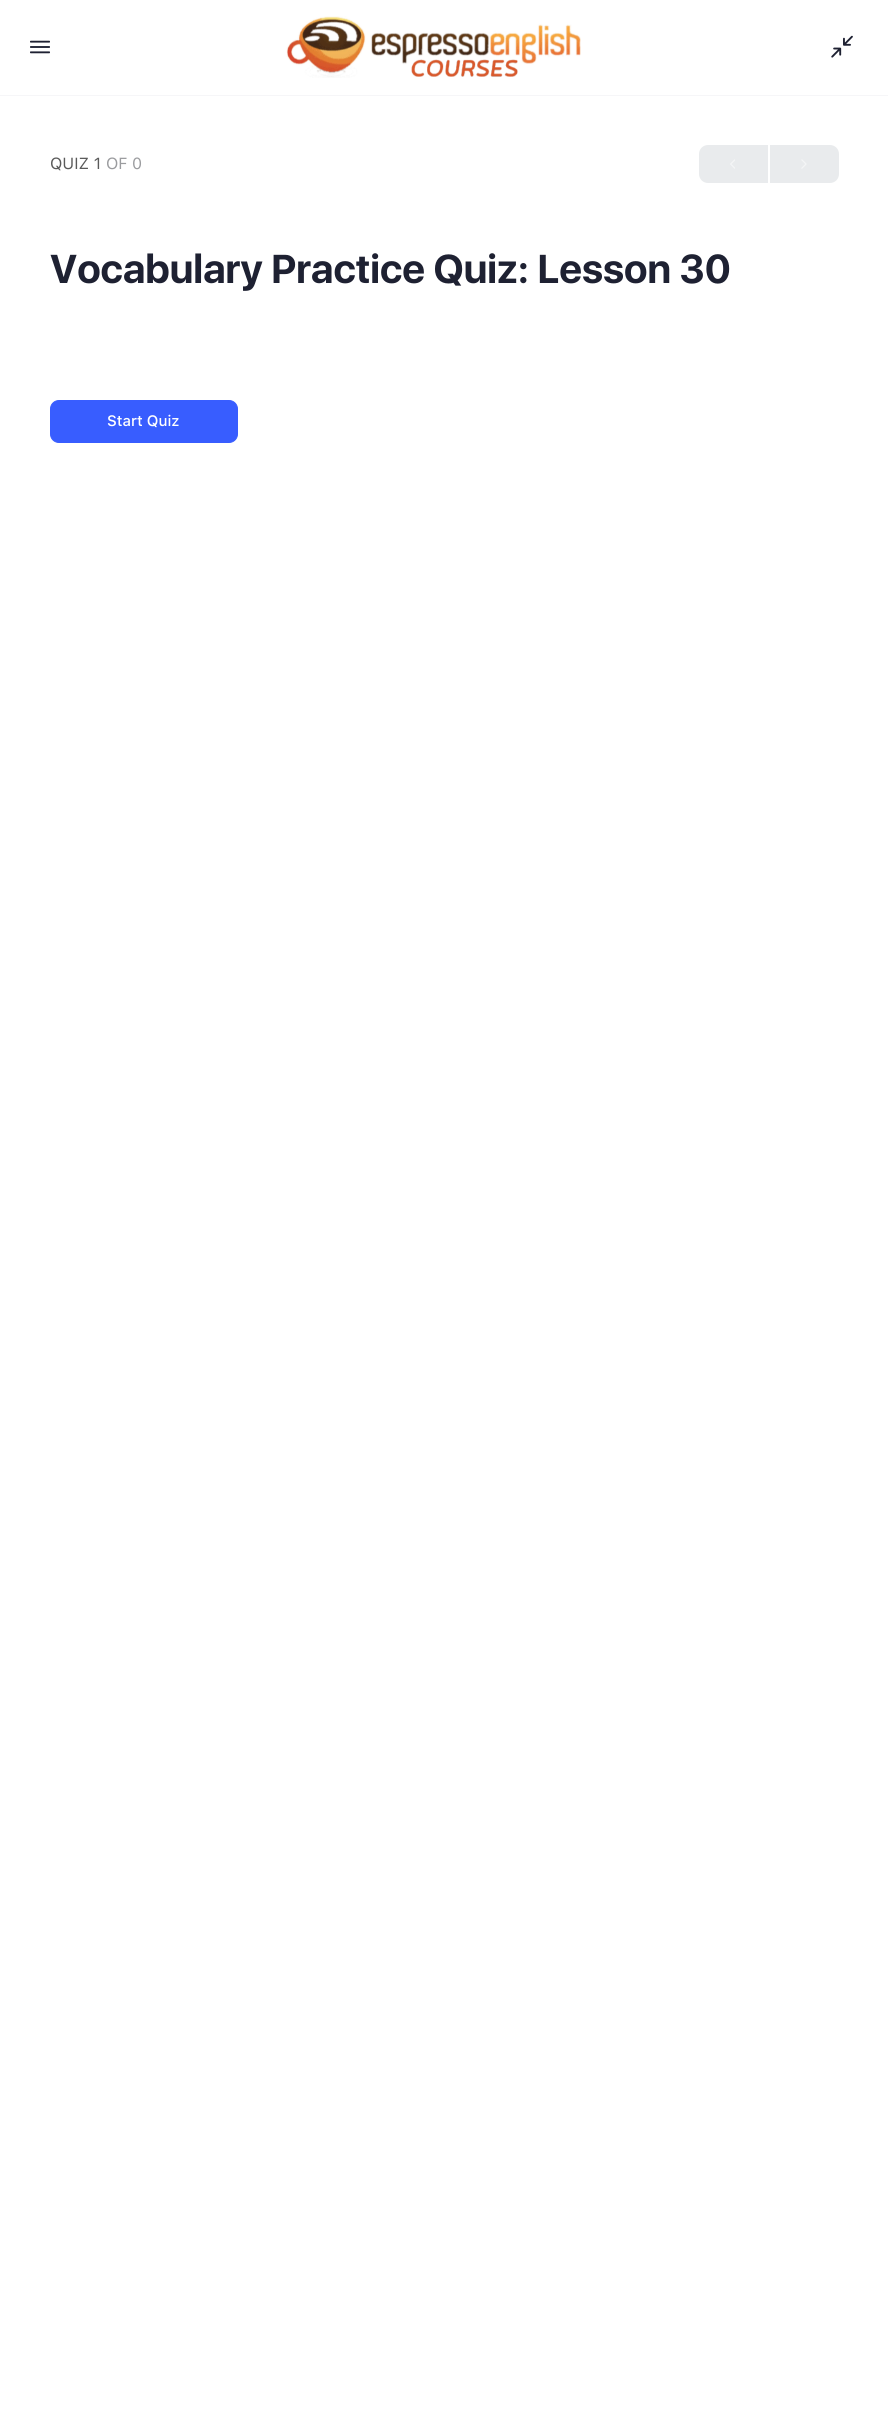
#include <cairo/cairo.h>
#include <math.h>
#include <stddef.h>


static void rounded_rect(cairo_t *cr, double x, double y, double w, double h, double r) {
  cairo_new_sub_path(cr);
  cairo_arc(cr, x + w - r, y + h - r, r, 0, M_PI / 2);
  cairo_arc(cr, x + r, y + h - r, r, M_PI / 2, M_PI);
  cairo_arc(cr, x + r, y + r, r, M_PI, 1.5 * M_PI);
  cairo_arc(cr, x + w - r, y + r, r, 1.5 * M_PI, 2 * M_PI);
  cairo_close_path(cr);
}

static void draw_image(cairo_t *cr, const char *path, double x, double y, double w, double h) {
  cairo_surface_t *image = cairo_image_surface_create_from_png(path);
  cairo_save(cr);
  cairo_set_source_surface(cr, image, x, y);
  cairo_rectangle(cr, x, y, w, h);
  cairo_fill(cr);
  cairo_restore(cr);
  cairo_surface_destroy(image);
}

static void draw(cairo_t *cr) {
  cairo_set_source_rgb(cr, 1, 1, 1);
  cairo_paint(cr);
  cairo_set_source_rgb(cr, 246 / 255.0, 246 / 255.0, 248 / 255.0);
  cairo_new_path(cr);
  cairo_move_to(cr, 0, 95);
  cairo_line_to(cr, 0, 96);
  cairo_line_to(cr, 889, 96);
  cairo_line_to(cr, 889, 1);
  cairo_line_to(cr, 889, 95);
  cairo_close_path(cr);
  cairo_fill(cr);
  draw_image(cr, "images/1.png", 30, 40, 20, 14);
  draw_image(cr, "images/2.png", 286, 16, 295, 62);
  draw_image(cr, "images/3.png", 831, 35, 22, 23);
  cairo_set_source_rgb(cr, 233 / 255.0, 235 / 255.0, 237 / 255.0);
  cairo_new_path(cr);
  cairo_move_to(cr, 708, 145);
  cairo_line_to(cr, 768, 145);
  cairo_line_to(cr, 768, 183);
  cairo_line_to(cr, 708, 183);
  cairo_curve_to(cr, 703, 183, 699, 179, 699, 174);
  cairo_line_to(cr, 699, 154);
  cairo_curve_to(cr, 699, 149, 703, 145, 708, 145);
  cairo_close_path(cr);
  cairo_fill(cr);
  draw_image(cr, "images/4.png", 730, 159, 5, 10);
  cairo_new_path(cr);
  cairo_move_to(cr, 770, 145);
  cairo_line_to(cr, 830, 145);
  cairo_curve_to(cr, 835, 145, 839, 149, 839, 154);
  cairo_line_to(cr, 839, 174);
  cairo_curve_to(cr, 839, 179, 835, 183, 830, 183);
  cairo_line_to(cr, 770, 183);
  cairo_close_path(cr);
  cairo_fill(cr);
  draw_image(cr, "images/5.png", 801, 159, 6, 10);
  cairo_set_source_rgb(cr, 56 / 255.0, 93 / 255.0, 1);
  rounded_rect(cr, 50.5, 400.5, 187, 42, 8.5);
  cairo_fill_preserve(cr);
  cairo_set_line_width(cr, 1);
  cairo_stroke(cr);
  cairo_select_font_face(cr, "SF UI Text", CAIRO_FONT_SLANT_NORMAL, CAIRO_FONT_WEIGHT_NORMAL);
  cairo_set_font_size(cr, 16);
  cairo_set_source_rgb(cr, 90 / 255.0, 90 / 255.0, 90 / 255.0);
  cairo_move_to(cr, 50, 169);
  cairo_show_text(cr, "QUIZ 1");
  cairo_set_source_rgb(cr, 155 / 255.0, 156 / 255.0, 159 / 255.0);
  cairo_move_to(cr, 106, 169);
  cairo_show_text(cr, "OF 0");
  cairo_select_font_face(cr, "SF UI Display", CAIRO_FONT_SLANT_NORMAL, CAIRO_FONT_WEIGHT_BOLD);
  cairo_set_font_size(cr, 40);
  cairo_set_source_rgb(cr, 30 / 255.0, 33 / 255.0, 50 / 255.0);
  cairo_move_to(cr, 50, 283);
  cairo_show_text(cr, "Vocabulary Practice Quiz: Lesson 30");
  cairo_select_font_face(cr, "SF UI Text Medium", CAIRO_FONT_SLANT_NORMAL, CAIRO_FONT_WEIGHT_NORMAL);
  cairo_set_font_size(cr, 15);
  cairo_set_source_rgb(cr, 1, 1, 1);
  cairo_move_to(cr, 107, 426);
  cairo_show_text(cr, "Start Quiz");
}

int main(void) {
  cairo_surface_t *surface = cairo_image_surface_create(CAIRO_FORMAT_RGB24, 888, 2434);
  cairo_t *cr = cairo_create(surface);
  cairo_font_options_t *options = cairo_font_options_create();
  cairo_font_options_set_hint_metrics(options, CAIRO_HINT_METRICS_OFF);
  cairo_font_options_set_hint_style(options, CAIRO_HINT_STYLE_NONE);
  cairo_set_font_options(cr, options);
  cairo_set_miter_limit(cr, 4);
  draw(cr);
  cairo_surface_write_to_png(surface, "out.png");
  cairo_font_options_destroy(options);
  cairo_destroy(cr);
  cairo_surface_destroy(surface);
  return 0;
}
